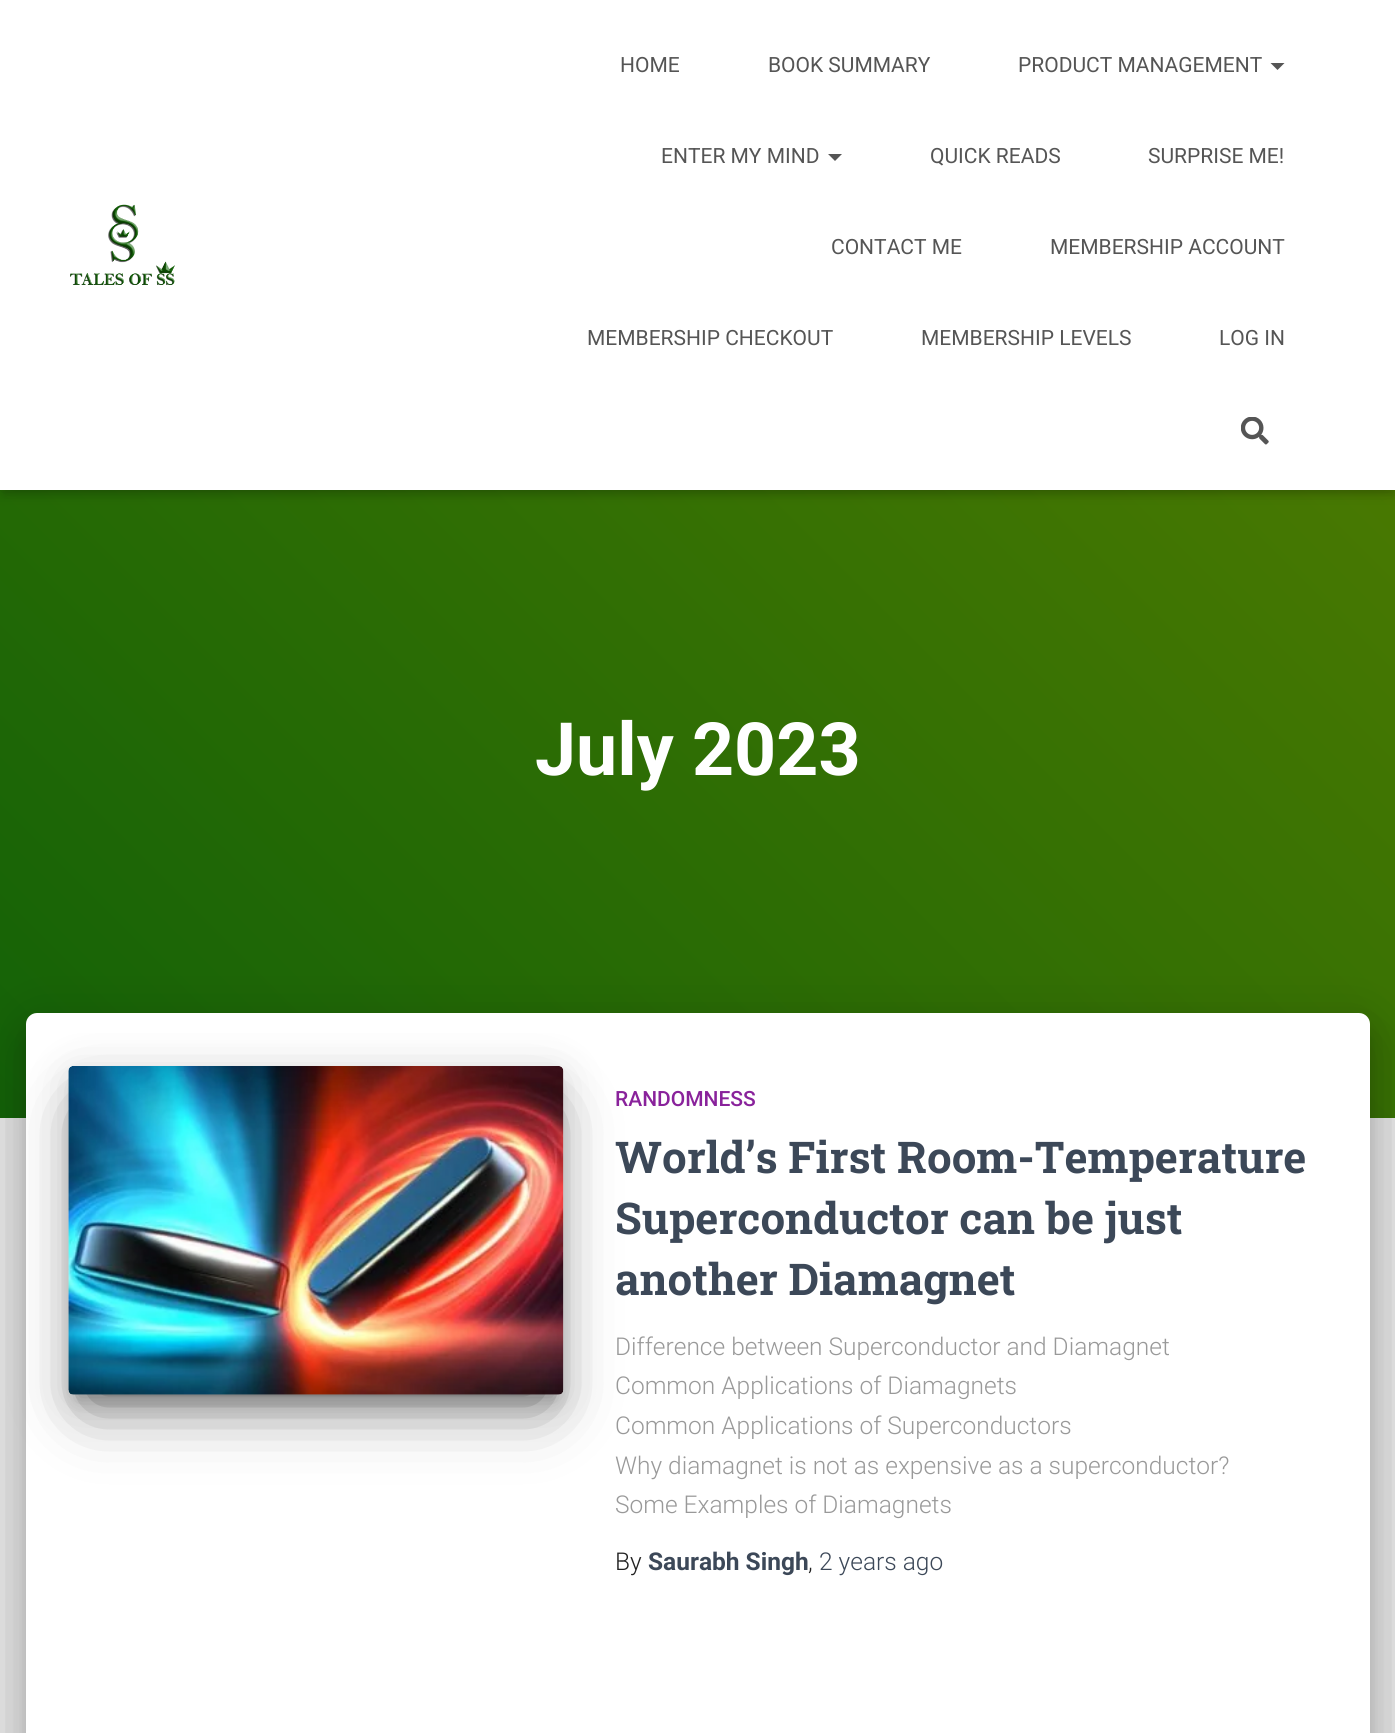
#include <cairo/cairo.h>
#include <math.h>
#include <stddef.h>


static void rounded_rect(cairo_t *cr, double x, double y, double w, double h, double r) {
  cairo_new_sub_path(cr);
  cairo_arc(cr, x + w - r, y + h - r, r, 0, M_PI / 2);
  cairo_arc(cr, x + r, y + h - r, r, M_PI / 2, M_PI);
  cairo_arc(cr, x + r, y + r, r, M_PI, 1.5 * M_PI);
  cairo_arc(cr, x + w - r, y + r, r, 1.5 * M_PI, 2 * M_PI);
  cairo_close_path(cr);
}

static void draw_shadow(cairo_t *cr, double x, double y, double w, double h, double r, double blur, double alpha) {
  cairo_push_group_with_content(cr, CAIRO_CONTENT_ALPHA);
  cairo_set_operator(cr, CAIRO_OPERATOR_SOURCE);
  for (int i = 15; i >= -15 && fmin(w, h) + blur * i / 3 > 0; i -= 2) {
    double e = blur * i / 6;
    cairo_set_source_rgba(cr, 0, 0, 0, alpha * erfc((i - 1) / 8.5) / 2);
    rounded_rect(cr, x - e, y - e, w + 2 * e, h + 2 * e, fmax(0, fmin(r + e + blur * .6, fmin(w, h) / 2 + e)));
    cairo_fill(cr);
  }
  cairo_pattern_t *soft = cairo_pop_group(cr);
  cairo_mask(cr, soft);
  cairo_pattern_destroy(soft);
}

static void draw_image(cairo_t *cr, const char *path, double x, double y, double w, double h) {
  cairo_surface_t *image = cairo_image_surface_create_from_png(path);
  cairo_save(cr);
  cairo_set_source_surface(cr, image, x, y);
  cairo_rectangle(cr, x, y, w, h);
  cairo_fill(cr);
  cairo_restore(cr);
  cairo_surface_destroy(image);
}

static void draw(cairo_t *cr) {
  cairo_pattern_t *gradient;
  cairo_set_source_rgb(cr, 229 / 255.0, 229 / 255.0, 229 / 255.0);
  cairo_paint(cr);
  gradient = cairo_pattern_create_linear(70, 1188, 1327, -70);
  cairo_pattern_add_color_stop_rgba(gradient, 0, 19 / 255.0, 98 / 255.0, 7 / 255.0, 1);
  cairo_pattern_add_color_stop_rgba(gradient, 1, 85 / 255.0, 126 / 255.0, 0, 1);
  cairo_set_source(cr, gradient);
  cairo_pattern_destroy(gradient);
  cairo_rectangle(cr, 0, 490, 1395, 628);
  cairo_fill(cr);
  cairo_set_source_rgb(cr, 0, 0, 0);
  draw_shadow(cr, 4, 11, 1389, 483, 0, 4.5, 0.1);
  draw_shadow(cr, 0, 2, 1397, 490, 0, 9, 0.12);
  draw_shadow(cr, 11, 12, 1375, 469, 0, 9, 0.42);
  cairo_set_source_rgb(cr, 1, 1, 1);
  cairo_rectangle(cr, 0, 0, 1395, 490);
  cairo_fill(cr);
  draw_image(cr, "images/1.png", 70, 204, 105, 81);
  cairo_set_source_rgb(cr, 85 / 255.0, 85 / 255.0, 85 / 255.0);
  cairo_new_path(cr);
  cairo_move_to(cr, 1270.5, 63);
  cairo_line_to(cr, 1284.5, 63);
  cairo_line_to(cr, 1277.5, 70);
  cairo_close_path(cr);
  cairo_fill(cr);
  cairo_new_path(cr);
  cairo_move_to(cr, 828, 154);
  cairo_line_to(cr, 842, 154);
  cairo_line_to(cr, 835, 161);
  cairo_close_path(cr);
  cairo_fill(cr);
  draw_image(cr, "images/2.png", 1241, 417, 28, 28);
  cairo_set_source_rgb(cr, 0, 0, 0);
  draw_shadow(cr, 35, 1036, 1327, 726, 2, 9, 0.2);
  draw_shadow(cr, 18, 1015, 1361, 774, 19, 26, 0.12);
  draw_shadow(cr, 23, 1038, 1351, 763, 14, 21, 0.14);
  cairo_set_source_rgb(cr, 1, 1, 1);
  cairo_new_path(cr);
  cairo_move_to(cr, 37, 1013);
  cairo_line_to(cr, 1359, 1013);
  cairo_curve_to(cr, 1365, 1013, 1370, 1018, 1370, 1024);
  cairo_line_to(cr, 1370, 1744);
  cairo_line_to(cr, 26, 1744);
  cairo_line_to(cr, 26, 1024);
  cairo_curve_to(cr, 26, 1018, 31, 1013, 37, 1013);
  cairo_close_path(cr);
  cairo_fill(cr);
  cairo_set_source_rgb(cr, 0, 0, 0);
  draw_shadow(cr, 77, 1089, 478, 311, 0, 9, 0.2);
  draw_shadow(cr, 68, 1073, 496, 329, 5, 22, 0.12);
  draw_shadow(cr, 89, 1115, 454, 287, 0, 33, 0.56);
  draw_image(cr, "images/3.png", 68, 1066, 496, 329);
  cairo_select_font_face(cr, "Roboto", CAIRO_FONT_SLANT_NORMAL, CAIRO_FONT_WEIGHT_NORMAL);
  cairo_set_font_size(cr, 21);
  cairo_set_source_rgb(cr, 85 / 255.0, 85 / 255.0, 85 / 255.0);
  cairo_move_to(cr, 620, 72);
  cairo_show_text(cr, "HOME");
  cairo_move_to(cr, 768, 72);
  cairo_show_text(cr, "BOOK SUMMARY");
  cairo_move_to(cr, 1018, 72);
  cairo_show_text(cr, "PRODUCT MANAGEMENT");
  cairo_move_to(cr, 661, 163);
  cairo_show_text(cr, "ENTER MY MIND");
  cairo_move_to(cr, 930, 163);
  cairo_show_text(cr, "QUICK READS");
  cairo_move_to(cr, 1148, 163);
  cairo_show_text(cr, "SURPRISE ME!");
  cairo_move_to(cr, 831, 254);
  cairo_show_text(cr, "CONTACT ME");
  cairo_move_to(cr, 1050, 254);
  cairo_show_text(cr, "MEMBERSHIP ACCOUNT");
  cairo_move_to(cr, 587, 345);
  cairo_show_text(cr, "MEMBERSHIP CHECKOUT");
  cairo_move_to(cr, 921, 345);
  cairo_show_text(cr, "MEMBERSHIP LEVELS");
  cairo_move_to(cr, 1219, 345);
  cairo_show_text(cr, "LOG IN");
  cairo_select_font_face(cr, "Roboto", CAIRO_FONT_SLANT_NORMAL, CAIRO_FONT_WEIGHT_BOLD);
  cairo_set_font_size(cr, 73.5);
  cairo_set_source_rgb(cr, 1, 1, 1);
  cairo_move_to(cr, 535, 775);
  cairo_show_text(cr, "July 2023");
  cairo_select_font_face(cr, "Roboto Medium", CAIRO_FONT_SLANT_NORMAL, CAIRO_FONT_WEIGHT_NORMAL);
  cairo_set_font_size(cr, 21);
  cairo_set_source_rgb(cr, 137 / 255.0, 34 / 255.0, 155 / 255.0);
  cairo_move_to(cr, 615, 1106);
  cairo_show_text(cr, "RANDOMNESS");
  cairo_select_font_face(cr, "Roboto Slab", CAIRO_FONT_SLANT_NORMAL, CAIRO_FONT_WEIGHT_BOLD);
  cairo_set_font_size(cr, 43.75);
  cairo_set_source_rgb(cr, 60 / 255.0, 72 / 255.0, 88 / 255.0);
  cairo_move_to(cr, 615, 1173);
  cairo_show_text(cr, "World’s First Room-Temperature");
  cairo_move_to(cr, 615, 1234);
  cairo_show_text(cr, "Superconductor can be just");
  cairo_move_to(cr, 615, 1295);
  cairo_show_text(cr, "another Diamagnet");
  cairo_select_font_face(cr, "Roboto Light", CAIRO_FONT_SLANT_NORMAL, CAIRO_FONT_WEIGHT_NORMAL);
  cairo_set_font_size(cr, 24.5);
  cairo_set_source_rgb(cr, 153 / 255.0, 153 / 255.0, 153 / 255.0);
  cairo_move_to(cr, 615, 1355);
  cairo_show_text(cr, "Difference between Superconductor and Diamagnet");
  cairo_move_to(cr, 615, 1394);
  cairo_show_text(cr, "Common Applications of Diamagnets");
  cairo_move_to(cr, 615, 1434);
  cairo_show_text(cr, "Common Applications of Superconductors");
  cairo_move_to(cr, 615, 1474);
  cairo_show_text(cr, "Why diamagnet is not as expensive as a superconductor?");
  cairo_move_to(cr, 615, 1513);
  cairo_show_text(cr, "Some Examples of Diamagnets");
  cairo_set_source_rgb(cr, 33 / 255.0, 33 / 255.0, 33 / 255.0);
  cairo_move_to(cr, 615, 1570);
  cairo_show_text(cr, "By");
  cairo_select_font_face(cr, "Roboto", CAIRO_FONT_SLANT_NORMAL, CAIRO_FONT_WEIGHT_BOLD);
  cairo_set_source_rgb(cr, 60 / 255.0, 72 / 255.0, 88 / 255.0);
  cairo_move_to(cr, 648, 1570);
  cairo_show_text(cr, "Saurabh Singh");
  cairo_select_font_face(cr, "Roboto Light", CAIRO_FONT_SLANT_NORMAL, CAIRO_FONT_WEIGHT_NORMAL);
  cairo_set_source_rgb(cr, 33 / 255.0, 33 / 255.0, 33 / 255.0);
  cairo_move_to(cr, 808, 1570);
  cairo_show_text(cr, ",");
  cairo_set_source_rgb(cr, 60 / 255.0, 72 / 255.0, 88 / 255.0);
  cairo_move_to(cr, 819, 1570);
  cairo_show_text(cr, "2 years ago");
}

int main(void) {
  cairo_surface_t *surface = cairo_image_surface_create(CAIRO_FORMAT_RGB24, 1395, 1733);
  cairo_t *cr = cairo_create(surface);
  cairo_font_options_t *options = cairo_font_options_create();
  cairo_font_options_set_hint_metrics(options, CAIRO_HINT_METRICS_OFF);
  cairo_font_options_set_hint_style(options, CAIRO_HINT_STYLE_NONE);
  cairo_set_font_options(cr, options);
  cairo_set_miter_limit(cr, 4);
  draw(cr);
  cairo_surface_write_to_png(surface, "out.png");
  cairo_font_options_destroy(options);
  cairo_destroy(cr);
  cairo_surface_destroy(surface);
  return 0;
}
